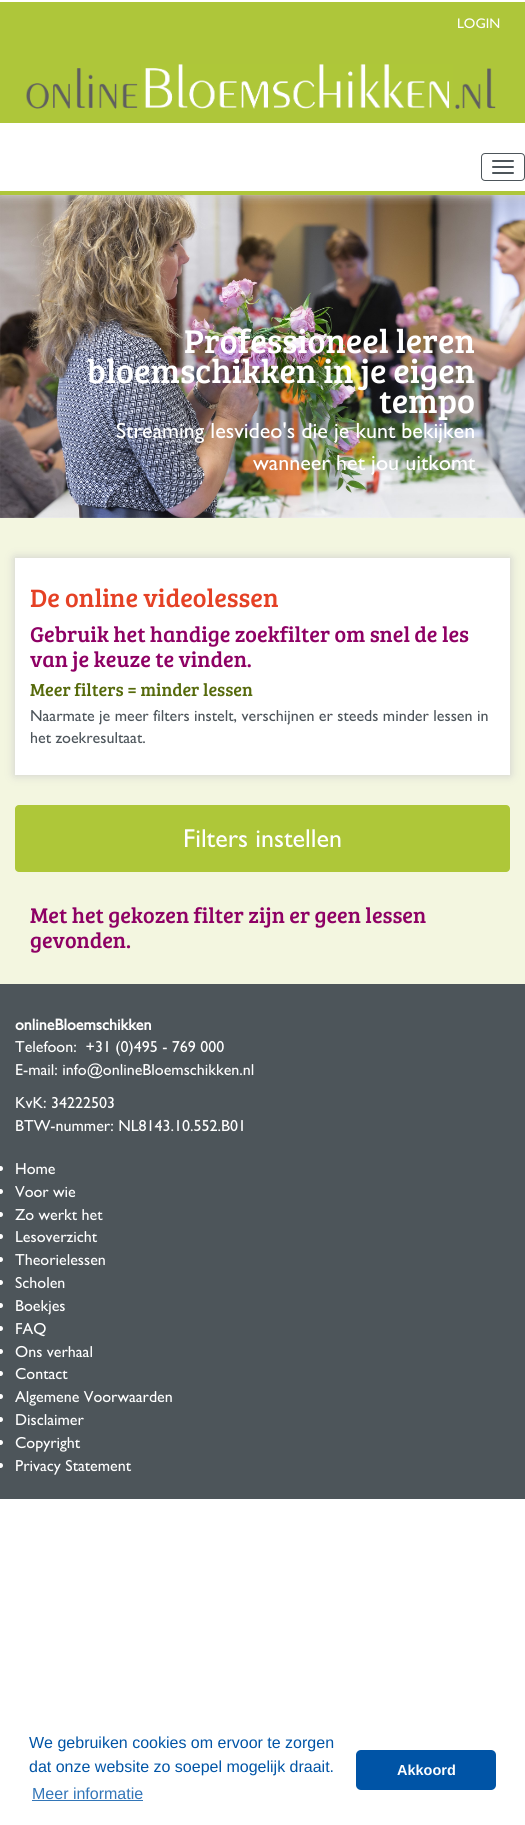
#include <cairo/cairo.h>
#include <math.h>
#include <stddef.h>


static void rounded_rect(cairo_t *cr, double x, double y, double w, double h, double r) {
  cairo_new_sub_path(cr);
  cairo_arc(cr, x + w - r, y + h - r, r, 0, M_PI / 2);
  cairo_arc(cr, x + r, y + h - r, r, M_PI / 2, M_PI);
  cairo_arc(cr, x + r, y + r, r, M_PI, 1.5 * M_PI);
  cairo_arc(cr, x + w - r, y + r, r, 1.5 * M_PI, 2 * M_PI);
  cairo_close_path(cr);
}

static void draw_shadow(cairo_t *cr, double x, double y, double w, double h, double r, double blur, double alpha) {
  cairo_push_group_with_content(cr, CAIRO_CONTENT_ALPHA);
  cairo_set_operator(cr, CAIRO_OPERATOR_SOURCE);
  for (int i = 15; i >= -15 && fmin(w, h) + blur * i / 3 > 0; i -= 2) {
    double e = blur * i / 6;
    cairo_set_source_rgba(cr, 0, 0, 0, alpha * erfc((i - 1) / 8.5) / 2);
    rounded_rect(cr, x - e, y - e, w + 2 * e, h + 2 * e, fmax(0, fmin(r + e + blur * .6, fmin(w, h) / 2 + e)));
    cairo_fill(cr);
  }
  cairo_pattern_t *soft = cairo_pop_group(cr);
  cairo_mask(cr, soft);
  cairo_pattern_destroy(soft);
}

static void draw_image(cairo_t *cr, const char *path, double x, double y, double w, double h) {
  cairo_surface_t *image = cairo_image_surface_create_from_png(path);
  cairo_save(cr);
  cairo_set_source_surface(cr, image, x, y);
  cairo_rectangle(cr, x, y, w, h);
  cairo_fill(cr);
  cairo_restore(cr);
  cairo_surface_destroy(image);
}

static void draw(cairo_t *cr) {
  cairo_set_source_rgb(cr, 1, 1, 1);
  cairo_paint(cr);
  draw_image(cr, "images/2.png", 0, 195, 525, 323);
  cairo_save(cr);
  cairo_rectangle(cr, 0, 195, 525, 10);
  cairo_clip(cr);
  cairo_set_source_rgb(cr, 221 / 255.0, 221 / 255.0, 221 / 255.0);
  draw_shadow(cr, 0, 0, 525, 195, 0, 5, 1);
  cairo_restore(cr);
  cairo_set_source_rgb(cr, 174 / 255.0, 198 / 255.0, 58 / 255.0);
  cairo_rectangle(cr, 0, 191, 525, 4);
  cairo_fill(cr);
  cairo_rectangle(cr, 0, 2, 525, 121);
  cairo_fill(cr);
  draw_image(cr, "images/1.png", 26, 64, 470, 45);
  rounded_rect(cr, 481.5, 153.5, 43, 27, 3.5);
  cairo_set_source_rgb(cr, 77 / 255.0, 85 / 255.0, 90 / 255.0);
  cairo_set_line_width(cr, 1);
  cairo_stroke(cr);
  rounded_rect(cr, 492, 160, 22, 2, 1);
  cairo_fill(cr);
  rounded_rect(cr, 492, 166, 22, 2, 1);
  cairo_fill(cr);
  rounded_rect(cr, 492, 172, 22, 2, 1);
  cairo_fill(cr);
  cairo_set_source_rgb(cr, 243 / 255.0, 246 / 255.0, 224 / 255.0);
  cairo_rectangle(cr, 0, 518, 525, 466);
  cairo_fill(cr);
  cairo_set_source_rgb(cr, 204 / 255.0, 204 / 255.0, 204 / 255.0);
  draw_shadow(cr, 15, 558, 495, 217, 0, 5, 1);
  cairo_set_source_rgb(cr, 1, 1, 1);
  cairo_rectangle(cr, 15, 558, 495, 217);
  cairo_fill(cr);
  cairo_set_source_rgb(cr, 174 / 255.0, 199 / 255.0, 57 / 255.0);
  rounded_rect(cr, 15, 805, 495, 67, 4);
  cairo_fill(cr);
  cairo_set_source_rgb(cr, 77 / 255.0, 85 / 255.0, 90 / 255.0);
  cairo_rectangle(cr, 0, 984, 525, 515);
  cairo_fill(cr);
  cairo_set_source_rgb(cr, 1, 1, 1);
  cairo_arc(cr, 0.5, 1168.5, 2.5, 0, 2 * M_PI);
  cairo_fill(cr);
  cairo_arc(cr, 0.5, 1191.5, 2.5, 0, 2 * M_PI);
  cairo_fill(cr);
  cairo_arc(cr, 0.5, 1214.5, 2.5, 0, 2 * M_PI);
  cairo_fill(cr);
  cairo_arc(cr, 0.5, 1236.5, 2.5, 0, 2 * M_PI);
  cairo_fill(cr);
  cairo_arc(cr, 0.5, 1259.5, 2.5, 0, 2 * M_PI);
  cairo_fill(cr);
  cairo_arc(cr, 0.5, 1282.5, 2.5, 0, 2 * M_PI);
  cairo_fill(cr);
  cairo_arc(cr, 0.5, 1305.5, 2.5, 0, 2 * M_PI);
  cairo_fill(cr);
  cairo_arc(cr, 0.5, 1328.5, 2.5, 0, 2 * M_PI);
  cairo_fill(cr);
  cairo_arc(cr, 0.5, 1351.5, 2.5, 0, 2 * M_PI);
  cairo_fill(cr);
  cairo_arc(cr, 0.5, 1373.5, 2.5, 0, 2 * M_PI);
  cairo_fill(cr);
  cairo_arc(cr, 0.5, 1396.5, 2.5, 0, 2 * M_PI);
  cairo_fill(cr);
  cairo_arc(cr, 0.5, 1419.5, 2.5, 0, 2 * M_PI);
  cairo_fill(cr);
  cairo_arc(cr, 0.5, 1442.5, 2.5, 0, 2 * M_PI);
  cairo_fill(cr);
  cairo_arc(cr, 0.5, 1465.5, 2.5, 0, 2 * M_PI);
  cairo_fill(cr);
  cairo_set_source_rgb(cr, 51 / 255.0, 118 / 255.0, 184 / 255.0);
  cairo_rectangle(cr, 32, 1800, 111, 1);
  cairo_fill(cr);
  cairo_set_source_rgb(cr, 0, 84 / 255.0, 166 / 255.0);
  rounded_rect(cr, 356, 1750, 140, 40, 5);
  cairo_fill(cr);
  cairo_select_font_face(cr, "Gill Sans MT", CAIRO_FONT_SLANT_NORMAL, CAIRO_FONT_WEIGHT_NORMAL);
  cairo_set_font_size(cr, 14);
  cairo_set_source_rgb(cr, 1, 1, 1);
  cairo_move_to(cr, 457, 28);
  cairo_show_text(cr, "LOGIN");
  cairo_select_font_face(cr, "Bree Serif", CAIRO_FONT_SLANT_NORMAL, CAIRO_FONT_WEIGHT_NORMAL);
  cairo_set_font_size(cr, 34);
  cairo_move_to(cr, 184, 353);
  cairo_show_text(cr, "Professioneel leren");
  cairo_move_to(cr, 87, 383);
  cairo_show_text(cr, "bloemschikken in je eigen");
  cairo_move_to(cr, 379, 413);
  cairo_show_text(cr, "tempo");
  cairo_select_font_face(cr, "Gill Sans MT", CAIRO_FONT_SLANT_NORMAL, CAIRO_FONT_WEIGHT_NORMAL);
  cairo_set_font_size(cr, 22);
  cairo_move_to(cr, 116, 438);
  cairo_show_text(cr, "Streaming lesvideo's die je kunt bekijken");
  cairo_move_to(cr, 253, 470);
  cairo_show_text(cr, "wanneer het jou uitkomt");
  cairo_select_font_face(cr, "Bree Serif", CAIRO_FONT_SLANT_NORMAL, CAIRO_FONT_WEIGHT_NORMAL);
  cairo_set_font_size(cr, 26);
  cairo_set_source_rgb(cr, 229 / 255.0, 65 / 255.0, 37 / 255.0);
  cairo_move_to(cr, 30, 607);
  cairo_show_text(cr, "De online videolessen");
  cairo_set_font_size(cr, 22);
  cairo_set_source_rgb(cr, 142 / 255.0, 0, 100 / 255.0);
  cairo_move_to(cr, 30, 642);
  cairo_show_text(cr, "Gebruik het handige zoekfilter om snel de les");
  cairo_move_to(cr, 30, 667);
  cairo_show_text(cr, "van je keuze te vinden.");
  cairo_set_font_size(cr, 18);
  cairo_set_source_rgb(cr, 86 / 255.0, 106 / 255.0, 11 / 255.0);
  cairo_move_to(cr, 30, 696);
  cairo_show_text(cr, "Meer filters = minder lessen");
  cairo_select_font_face(cr, "Gill Sans MT", CAIRO_FONT_SLANT_NORMAL, CAIRO_FONT_WEIGHT_NORMAL);
  cairo_set_font_size(cr, 16);
  cairo_set_source_rgb(cr, 77 / 255.0, 85 / 255.0, 91 / 255.0);
  cairo_move_to(cr, 30, 721);
  cairo_show_text(cr, "Naarmate je meer filters instelt, verschijnen er steeds minder lessen in");
  cairo_move_to(cr, 30, 743);
  cairo_show_text(cr, "het zoekresultaat.");
  cairo_set_font_size(cr, 26);
  cairo_set_source_rgb(cr, 1, 1, 1);
  cairo_move_to(cr, 183, 847);
  cairo_show_text(cr, "Filters instellen");
  cairo_select_font_face(cr, "Bree Serif", CAIRO_FONT_SLANT_NORMAL, CAIRO_FONT_WEIGHT_NORMAL);
  cairo_set_font_size(cr, 22);
  cairo_set_source_rgb(cr, 142 / 255.0, 0, 100 / 255.0);
  cairo_move_to(cr, 30, 923);
  cairo_show_text(cr, "Met het gekozen filter zijn er geen lessen");
  cairo_move_to(cr, 30, 948);
  cairo_show_text(cr, "gevonden.");
  cairo_select_font_face(cr, "Gill Sans MT", CAIRO_FONT_SLANT_NORMAL, CAIRO_FONT_WEIGHT_BOLD);
  cairo_set_font_size(cr, 16);
  cairo_set_source_rgb(cr, 1, 1, 1);
  cairo_move_to(cr, 15, 1030);
  cairo_show_text(cr, "onlineBloemschikken");
  cairo_select_font_face(cr, "Gill Sans MT", CAIRO_FONT_SLANT_NORMAL, CAIRO_FONT_WEIGHT_NORMAL);
  cairo_move_to(cr, 15, 1052);
  cairo_show_text(cr, "Telefoon:  +31 (0)495 - 769 000");
  cairo_move_to(cr, 15, 1075);
  cairo_show_text(cr, "E-mail: info@onlineBloemschikken.nl");
  cairo_move_to(cr, 15, 1108);
  cairo_show_text(cr, "KvK: 34222503");
  cairo_move_to(cr, 15, 1131);
  cairo_show_text(cr, "BTW-nummer: NL8143.10.552.B01");
  cairo_move_to(cr, 15, 1174);
  cairo_show_text(cr, "Home");
  cairo_move_to(cr, 15, 1197);
  cairo_show_text(cr, "Voor wie");
  cairo_move_to(cr, 15, 1220);
  cairo_show_text(cr, "Zo werkt het");
  cairo_move_to(cr, 15, 1242);
  cairo_show_text(cr, "Lesoverzicht");
  cairo_move_to(cr, 15, 1265);
  cairo_show_text(cr, "Theorielessen");
  cairo_move_to(cr, 15, 1288);
  cairo_show_text(cr, "Scholen");
  cairo_move_to(cr, 15, 1311);
  cairo_show_text(cr, "Boekjes");
  cairo_move_to(cr, 15, 1334);
  cairo_show_text(cr, "FAQ");
  cairo_move_to(cr, 15, 1357);
  cairo_show_text(cr, "Ons verhaal");
  cairo_move_to(cr, 15, 1379);
  cairo_show_text(cr, "Contact");
  cairo_move_to(cr, 15, 1402);
  cairo_show_text(cr, "Algemene Voorwaarden");
  cairo_move_to(cr, 15, 1425);
  cairo_show_text(cr, "Disclaimer");
  cairo_move_to(cr, 15, 1448);
  cairo_show_text(cr, "Copyright");
  cairo_move_to(cr, 15, 1471);
  cairo_show_text(cr, "Privacy Statement");
  cairo_select_font_face(cr, "Liberation Sans", CAIRO_FONT_SLANT_NORMAL, CAIRO_FONT_WEIGHT_NORMAL);
  cairo_set_source_rgb(cr, 0, 84 / 255.0, 166 / 255.0);
  cairo_move_to(cr, 29, 1748);
  cairo_show_text(cr, "We gebruiken cookies om ervoor te zorgen");
  cairo_move_to(cr, 29, 1772);
  cairo_show_text(cr, "dat onze website zo soepel mogelijk draait.");
  cairo_set_source_rgb(cr, 51 / 255.0, 118 / 255.0, 184 / 255.0);
  cairo_move_to(cr, 32, 1799);
  cairo_show_text(cr, "Meer informatie");
  cairo_select_font_face(cr, "Liberation Sans", CAIRO_FONT_SLANT_NORMAL, CAIRO_FONT_WEIGHT_BOLD);
  cairo_set_font_size(cr, 14.5);
  cairo_set_source_rgb(cr, 1, 1, 1);
  cairo_move_to(cr, 397, 1775);
  cairo_show_text(cr, "Akkoord");
}

int main(void) {
  cairo_surface_t *surface = cairo_image_surface_create(CAIRO_FORMAT_RGB24, 525, 1825);
  cairo_t *cr = cairo_create(surface);
  cairo_font_options_t *options = cairo_font_options_create();
  cairo_font_options_set_hint_metrics(options, CAIRO_HINT_METRICS_OFF);
  cairo_font_options_set_hint_style(options, CAIRO_HINT_STYLE_NONE);
  cairo_set_font_options(cr, options);
  cairo_set_miter_limit(cr, 4);
  draw(cr);
  cairo_surface_write_to_png(surface, "out.png");
  cairo_font_options_destroy(options);
  cairo_destroy(cr);
  cairo_surface_destroy(surface);
  return 0;
}
